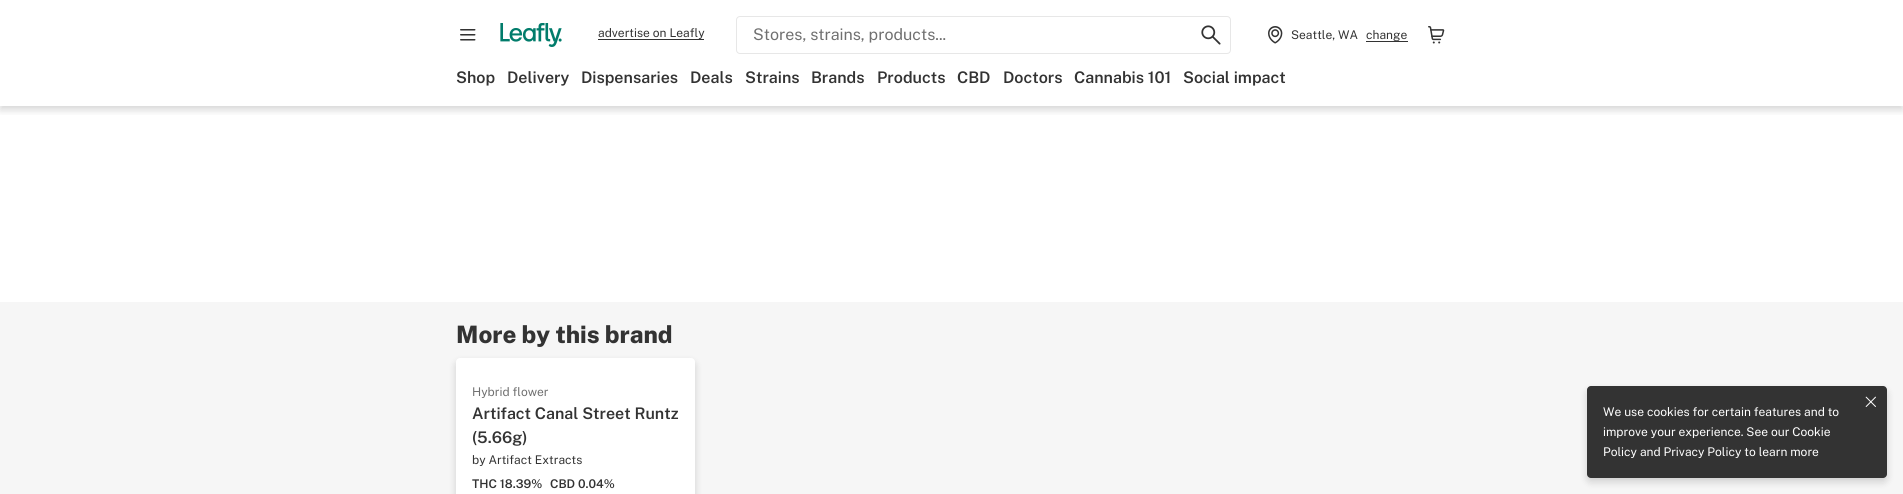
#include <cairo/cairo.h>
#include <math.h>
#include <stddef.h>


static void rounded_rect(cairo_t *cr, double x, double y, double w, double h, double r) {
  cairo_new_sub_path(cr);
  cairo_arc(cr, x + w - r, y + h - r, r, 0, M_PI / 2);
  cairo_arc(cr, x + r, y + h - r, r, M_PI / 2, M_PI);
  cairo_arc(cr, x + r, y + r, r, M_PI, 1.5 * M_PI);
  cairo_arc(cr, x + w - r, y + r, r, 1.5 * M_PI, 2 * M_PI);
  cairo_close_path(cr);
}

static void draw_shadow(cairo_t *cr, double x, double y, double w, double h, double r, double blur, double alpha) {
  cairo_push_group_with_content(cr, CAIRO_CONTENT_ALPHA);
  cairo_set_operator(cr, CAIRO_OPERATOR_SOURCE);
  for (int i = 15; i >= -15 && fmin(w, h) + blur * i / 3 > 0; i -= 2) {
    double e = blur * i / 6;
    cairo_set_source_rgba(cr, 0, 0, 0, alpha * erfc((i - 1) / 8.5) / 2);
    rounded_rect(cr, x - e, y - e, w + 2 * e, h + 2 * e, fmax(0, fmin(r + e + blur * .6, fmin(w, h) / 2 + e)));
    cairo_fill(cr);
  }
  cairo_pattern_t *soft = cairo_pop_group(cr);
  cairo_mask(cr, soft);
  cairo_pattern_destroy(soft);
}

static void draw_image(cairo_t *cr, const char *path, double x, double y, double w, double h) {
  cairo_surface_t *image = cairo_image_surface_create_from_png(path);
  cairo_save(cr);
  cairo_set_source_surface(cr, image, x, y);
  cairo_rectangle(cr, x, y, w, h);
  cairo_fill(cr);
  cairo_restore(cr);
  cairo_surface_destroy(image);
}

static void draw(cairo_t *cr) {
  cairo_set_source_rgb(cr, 1, 1, 1);
  cairo_paint(cr);
  cairo_save(cr);
  cairo_rectangle(cr, 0, 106, 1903, 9);
  cairo_clip(cr);
  cairo_set_source_rgb(cr, 0, 0, 0);
  draw_shadow(cr, 0, 4, 1903, 106, 0, 4, 0.16);
  cairo_restore(cr);
  draw_image(cr, "images/1.png", 460, 29, 16, 12);
  draw_image(cr, "images/2.png", 500, 23, 62, 24);
  cairo_set_source_rgb(cr, 51 / 255.0, 51 / 255.0, 51 / 255.0);
  cairo_rectangle(cr, 598, 39, 106, 1);
  cairo_fill(cr);
  rounded_rect(cr, 736.5, 16.5, 494, 37, 3.5);
  cairo_set_source_rgb(cr, 231 / 255.0, 231 / 255.0, 231 / 255.0);
  cairo_set_line_width(cr, 1);
  cairo_stroke(cr);
  draw_image(cr, "images/3.png", 1201, 25, 20, 20);
  draw_image(cr, "images/4.png", 1268, 26, 15, 18);
  cairo_set_source_rgb(cr, 51 / 255.0, 51 / 255.0, 51 / 255.0);
  cairo_rectangle(cr, 1366, 41, 42, 1);
  cairo_fill(cr);
  draw_image(cr, "images/5.png", 1428, 26, 17, 18);
  cairo_set_source_rgb(cr, 246 / 255.0, 246 / 255.0, 246 / 255.0);
  cairo_rectangle(cr, 0, 302, 1903, 192);
  cairo_fill(cr);
  cairo_set_source_rgb(cr, 0, 0, 0);
  draw_shadow(cr, 456, 362, 239, 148, 4, 4, 0.16);
  cairo_set_source_rgb(cr, 1, 1, 1);
  rounded_rect(cr, 456, 358, 239, 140, 4);
  cairo_fill(cr);
  cairo_set_source_rgb(cr, 0, 0, 0);
  draw_shadow(cr, 1587, 390, 300, 92, 4, 4, 0.16);
  cairo_set_source_rgb(cr, 51 / 255.0, 51 / 255.0, 51 / 255.0);
  rounded_rect(cr, 1587, 386, 300, 92, 4);
  cairo_fill(cr);
  draw_image(cr, "images/6.png", 1865, 396, 11, 11);
  cairo_select_font_face(cr, "Public Sans", CAIRO_FONT_SLANT_NORMAL, CAIRO_FONT_WEIGHT_NORMAL);
  cairo_set_font_size(cr, 12);
  cairo_move_to(cr, 598, 37);
  cairo_show_text(cr, "advertise on Leafly");
  cairo_set_font_size(cr, 16);
  cairo_set_source_rgb(cr, 112 / 255.0, 112 / 255.0, 112 / 255.0);
  cairo_move_to(cr, 753, 40);
  cairo_show_text(cr, "Stores, strains, products...");
  cairo_set_font_size(cr, 12);
  cairo_set_source_rgb(cr, 51 / 255.0, 51 / 255.0, 51 / 255.0);
  cairo_move_to(cr, 1291, 39);
  cairo_show_text(cr, "Seattle, WA");
  cairo_move_to(cr, 1366, 39);
  cairo_show_text(cr, "change");
  cairo_select_font_face(cr, "Public Sans SemiBold", CAIRO_FONT_SLANT_NORMAL, CAIRO_FONT_WEIGHT_NORMAL);
  cairo_set_font_size(cr, 16);
  cairo_move_to(cr, 456, 83);
  cairo_show_text(cr, "Shop");
  cairo_move_to(cr, 507, 83);
  cairo_show_text(cr, "Delivery");
  cairo_move_to(cr, 581, 83);
  cairo_show_text(cr, "Dispensaries");
  cairo_move_to(cr, 690, 83);
  cairo_show_text(cr, "Deals");
  cairo_move_to(cr, 745, 83);
  cairo_show_text(cr, "Strains");
  cairo_move_to(cr, 811, 83);
  cairo_show_text(cr, "Brands");
  cairo_move_to(cr, 877, 83);
  cairo_show_text(cr, "Products");
  cairo_move_to(cr, 957, 83);
  cairo_show_text(cr, "CBD");
  cairo_move_to(cr, 1003, 83);
  cairo_show_text(cr, "Doctors");
  cairo_move_to(cr, 1074, 83);
  cairo_show_text(cr, "Cannabis 101");
  cairo_move_to(cr, 1183, 83);
  cairo_show_text(cr, "Social impact");
  cairo_select_font_face(cr, "Public Sans ExtraBold", CAIRO_FONT_SLANT_NORMAL, CAIRO_FONT_WEIGHT_NORMAL);
  cairo_set_font_size(cr, 24);
  cairo_move_to(cr, 456, 343);
  cairo_show_text(cr, "More by this brand");
  cairo_select_font_face(cr, "Public Sans", CAIRO_FONT_SLANT_NORMAL, CAIRO_FONT_WEIGHT_NORMAL);
  cairo_set_font_size(cr, 12);
  cairo_set_source_rgb(cr, 112 / 255.0, 112 / 255.0, 112 / 255.0);
  cairo_move_to(cr, 472, 396);
  cairo_show_text(cr, "Hybrid flower");
  cairo_select_font_face(cr, "Public Sans SemiBold", CAIRO_FONT_SLANT_NORMAL, CAIRO_FONT_WEIGHT_NORMAL);
  cairo_set_font_size(cr, 16);
  cairo_set_source_rgb(cr, 51 / 255.0, 51 / 255.0, 51 / 255.0);
  cairo_move_to(cr, 472, 419);
  cairo_show_text(cr, "Artifact Canal Street Runtz");
  cairo_move_to(cr, 472, 443);
  cairo_show_text(cr, "(5.66g)");
  cairo_select_font_face(cr, "Public Sans", CAIRO_FONT_SLANT_NORMAL, CAIRO_FONT_WEIGHT_NORMAL);
  cairo_set_font_size(cr, 12);
  cairo_move_to(cr, 472, 464);
  cairo_show_text(cr, "by Artifact Extracts");
  cairo_select_font_face(cr, "Public Sans SemiBold", CAIRO_FONT_SLANT_NORMAL, CAIRO_FONT_WEIGHT_NORMAL);
  cairo_move_to(cr, 472, 488);
  cairo_show_text(cr, "THC 18.39%");
  cairo_move_to(cr, 550, 488);
  cairo_show_text(cr, "CBD 0.04%");
  cairo_select_font_face(cr, "Public Sans", CAIRO_FONT_SLANT_NORMAL, CAIRO_FONT_WEIGHT_NORMAL);
  cairo_set_source_rgb(cr, 1, 1, 1);
  cairo_move_to(cr, 1603, 416);
  cairo_show_text(cr, "We use cookies for certain features and to");
  cairo_move_to(cr, 1603, 436);
  cairo_show_text(cr, "improve your experience. See our Cookie");
  cairo_move_to(cr, 1603, 456);
  cairo_show_text(cr, "Policy and Privacy Policy to learn more");
}

int main(void) {
  cairo_surface_t *surface = cairo_image_surface_create(CAIRO_FORMAT_RGB24, 1903, 494);
  cairo_t *cr = cairo_create(surface);
  cairo_font_options_t *options = cairo_font_options_create();
  cairo_font_options_set_hint_metrics(options, CAIRO_HINT_METRICS_OFF);
  cairo_font_options_set_hint_style(options, CAIRO_HINT_STYLE_NONE);
  cairo_set_font_options(cr, options);
  cairo_set_miter_limit(cr, 4);
  draw(cr);
  cairo_surface_write_to_png(surface, "out.png");
  cairo_font_options_destroy(options);
  cairo_destroy(cr);
  cairo_surface_destroy(surface);
  return 0;
}
